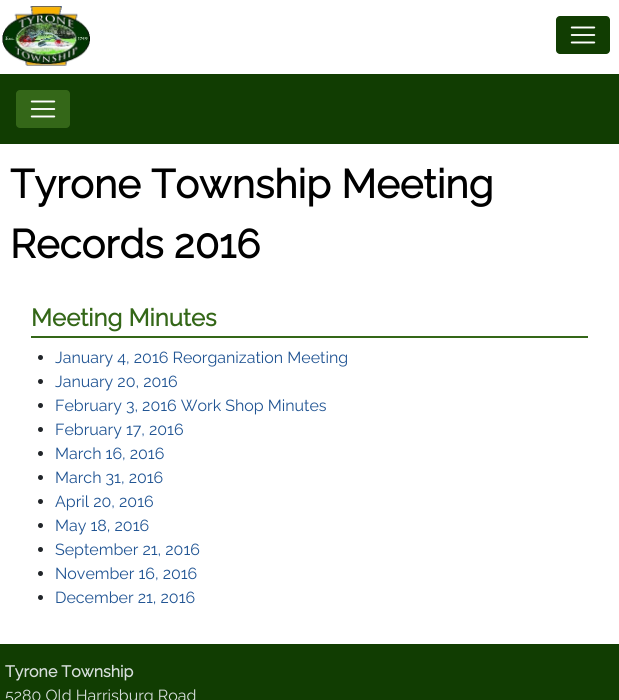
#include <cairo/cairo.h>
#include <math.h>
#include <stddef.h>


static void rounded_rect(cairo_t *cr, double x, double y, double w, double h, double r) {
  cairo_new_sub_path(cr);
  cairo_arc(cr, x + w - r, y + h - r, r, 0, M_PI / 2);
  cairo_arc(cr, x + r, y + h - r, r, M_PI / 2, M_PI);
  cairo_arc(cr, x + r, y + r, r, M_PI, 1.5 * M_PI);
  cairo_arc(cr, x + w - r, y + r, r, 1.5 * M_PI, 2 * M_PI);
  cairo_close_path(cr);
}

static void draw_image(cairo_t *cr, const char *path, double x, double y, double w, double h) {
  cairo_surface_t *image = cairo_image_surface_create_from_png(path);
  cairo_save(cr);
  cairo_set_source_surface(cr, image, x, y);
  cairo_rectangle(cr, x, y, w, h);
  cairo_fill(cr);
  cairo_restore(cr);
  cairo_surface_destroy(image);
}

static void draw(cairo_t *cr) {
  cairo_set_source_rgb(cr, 1, 1, 1);
  cairo_paint(cr);
  draw_image(cr, "images/1.png", 2, 6, 88, 60);
  cairo_set_source_rgb(cr, 17 / 255.0, 61 / 255.0, 2 / 255.0);
  rounded_rect(cr, 556, 16, 54, 38, 4);
  cairo_fill(cr);
  draw_image(cr, "images/2.png", 570, 26, 26, 18);
  cairo_rectangle(cr, 0, 74, 619, 70);
  cairo_fill(cr);
  cairo_set_source_rgb(cr, 52 / 255.0, 103 / 255.0, 24 / 255.0);
  rounded_rect(cr, 16, 90, 54, 38, 4);
  cairo_fill(cr);
  draw_image(cr, "images/3.png", 30, 100, 26, 18);
  cairo_rectangle(cr, 31, 336, 557, 2);
  cairo_fill(cr);
  cairo_set_source_rgb(cr, 33 / 255.0, 37 / 255.0, 41 / 255.0);
  cairo_arc(cr, 40.5, 357.5, 2.5, 0, 2 * M_PI);
  cairo_fill(cr);
  cairo_arc(cr, 40.5, 381.5, 2.5, 0, 2 * M_PI);
  cairo_fill(cr);
  cairo_arc(cr, 40.5, 405.5, 2.5, 0, 2 * M_PI);
  cairo_fill(cr);
  cairo_arc(cr, 40.5, 429.5, 2.5, 0, 2 * M_PI);
  cairo_fill(cr);
  cairo_arc(cr, 40.5, 453.5, 2.5, 0, 2 * M_PI);
  cairo_fill(cr);
  cairo_arc(cr, 40.5, 477.5, 2.5, 0, 2 * M_PI);
  cairo_fill(cr);
  cairo_arc(cr, 40.5, 501.5, 2.5, 0, 2 * M_PI);
  cairo_fill(cr);
  cairo_arc(cr, 40.5, 525.5, 2.5, 0, 2 * M_PI);
  cairo_fill(cr);
  cairo_arc(cr, 40.5, 549.5, 2.5, 0, 2 * M_PI);
  cairo_fill(cr);
  cairo_arc(cr, 40.5, 573.5, 2.5, 0, 2 * M_PI);
  cairo_fill(cr);
  cairo_arc(cr, 40.5, 597.5, 2.5, 0, 2 * M_PI);
  cairo_fill(cr);
  cairo_set_source_rgb(cr, 17 / 255.0, 61 / 255.0, 2 / 255.0);
  cairo_rectangle(cr, 0, 644, 619, 56);
  cairo_fill(cr);
  cairo_select_font_face(cr, "Raleway", CAIRO_FONT_SLANT_NORMAL, CAIRO_FONT_WEIGHT_BOLD);
  cairo_set_font_size(cr, 40);
  cairo_set_source_rgb(cr, 0, 0, 0);
  cairo_move_to(cr, 10, 198);
  cairo_show_text(cr, "Tyrone Township Meeting");
  cairo_move_to(cr, 10, 258);
  cairo_show_text(cr, "Records 2016");
  cairo_set_font_size(cr, 24);
  cairo_set_source_rgb(cr, 52 / 255.0, 103 / 255.0, 24 / 255.0);
  cairo_move_to(cr, 31, 326);
  cairo_show_text(cr, "Meeting Minutes");
  cairo_select_font_face(cr, "Raleway Thin", CAIRO_FONT_SLANT_NORMAL, CAIRO_FONT_WEIGHT_NORMAL);
  cairo_set_font_size(cr, 16);
  cairo_set_source_rgb(cr, 32 / 255.0, 84 / 255.0, 147 / 255.0);
  cairo_move_to(cr, 55, 363);
  cairo_show_text(cr, "January 4, 2016 Reorganization Meeting");
  cairo_move_to(cr, 55, 387);
  cairo_show_text(cr, "January 20, 2016");
  cairo_move_to(cr, 55, 411);
  cairo_show_text(cr, "February 3, 2016 Work Shop Minutes");
  cairo_move_to(cr, 55, 435);
  cairo_show_text(cr, "February 17, 2016");
  cairo_move_to(cr, 55, 459);
  cairo_show_text(cr, "March 16, 2016");
  cairo_move_to(cr, 55, 483);
  cairo_show_text(cr, "March 31, 2016");
  cairo_move_to(cr, 55, 507);
  cairo_show_text(cr, "April 20, 2016");
  cairo_move_to(cr, 55, 531);
  cairo_show_text(cr, "May 18, 2016");
  cairo_move_to(cr, 55, 555);
  cairo_show_text(cr, "September 21, 2016");
  cairo_move_to(cr, 55, 579);
  cairo_show_text(cr, "November 16, 2016");
  cairo_move_to(cr, 55, 603);
  cairo_show_text(cr, "December 21, 2016");
  cairo_select_font_face(cr, "Raleway", CAIRO_FONT_SLANT_NORMAL, CAIRO_FONT_WEIGHT_BOLD);
  cairo_set_source_rgb(cr, 215 / 255.0, 222 / 255.0, 220 / 255.0);
  cairo_move_to(cr, 5, 677);
  cairo_show_text(cr, "Tyrone Township");
  cairo_select_font_face(cr, "Raleway Thin", CAIRO_FONT_SLANT_NORMAL, CAIRO_FONT_WEIGHT_NORMAL);
  cairo_move_to(cr, 5, 701);
  cairo_show_text(cr, "5280 Old Harrisburg Road");
}

int main(void) {
  cairo_surface_t *surface = cairo_image_surface_create(CAIRO_FORMAT_RGB24, 619, 700);
  cairo_t *cr = cairo_create(surface);
  cairo_font_options_t *options = cairo_font_options_create();
  cairo_font_options_set_hint_metrics(options, CAIRO_HINT_METRICS_OFF);
  cairo_font_options_set_hint_style(options, CAIRO_HINT_STYLE_NONE);
  cairo_set_font_options(cr, options);
  cairo_set_miter_limit(cr, 4);
  draw(cr);
  cairo_surface_write_to_png(surface, "out.png");
  cairo_font_options_destroy(options);
  cairo_destroy(cr);
  cairo_surface_destroy(surface);
  return 0;
}
